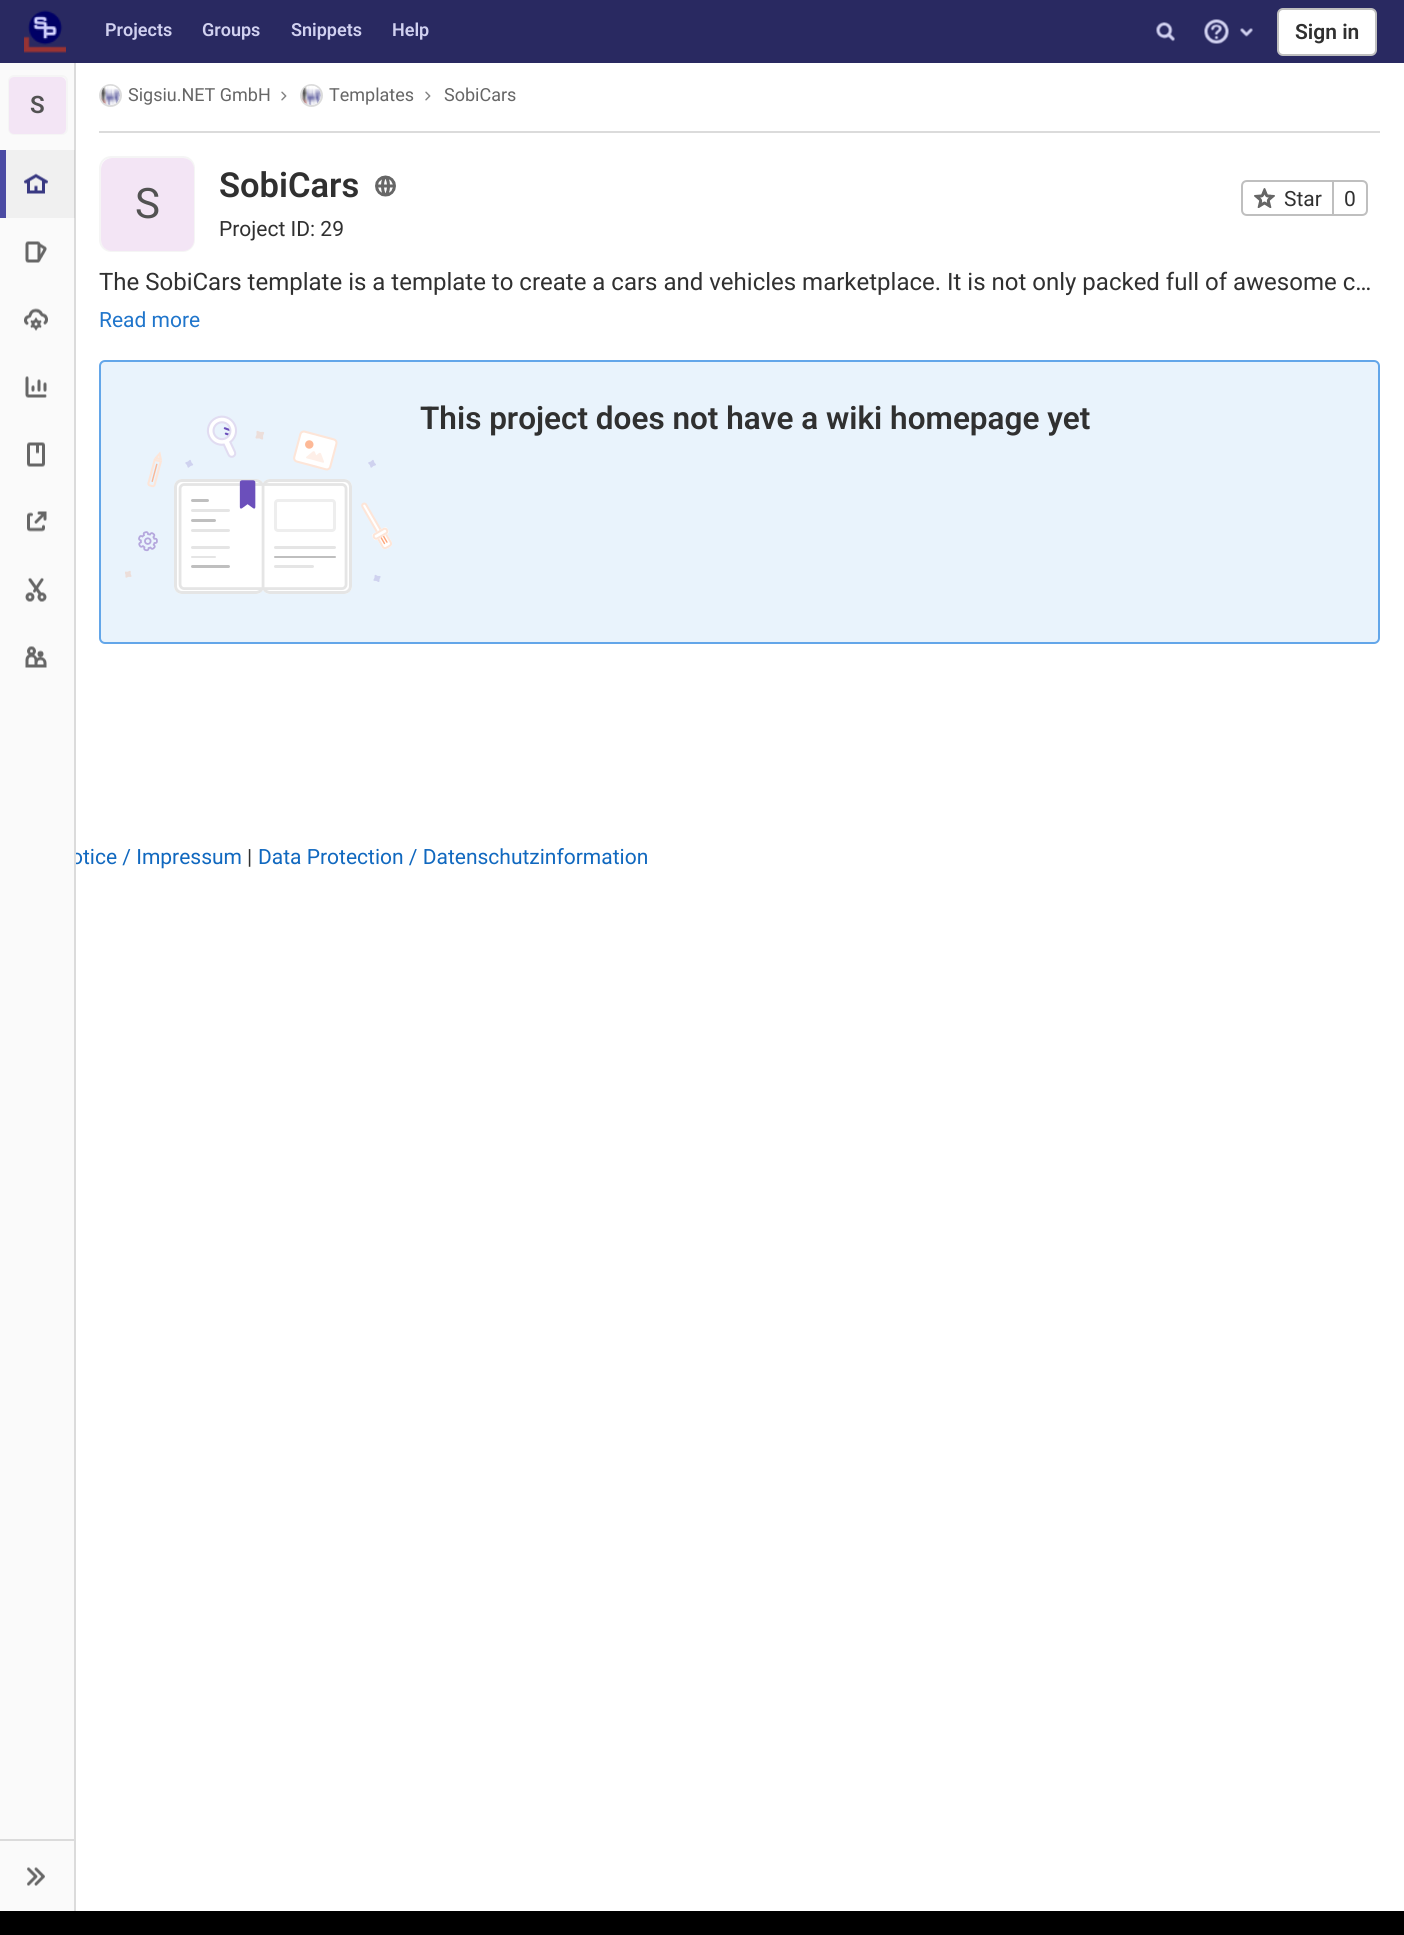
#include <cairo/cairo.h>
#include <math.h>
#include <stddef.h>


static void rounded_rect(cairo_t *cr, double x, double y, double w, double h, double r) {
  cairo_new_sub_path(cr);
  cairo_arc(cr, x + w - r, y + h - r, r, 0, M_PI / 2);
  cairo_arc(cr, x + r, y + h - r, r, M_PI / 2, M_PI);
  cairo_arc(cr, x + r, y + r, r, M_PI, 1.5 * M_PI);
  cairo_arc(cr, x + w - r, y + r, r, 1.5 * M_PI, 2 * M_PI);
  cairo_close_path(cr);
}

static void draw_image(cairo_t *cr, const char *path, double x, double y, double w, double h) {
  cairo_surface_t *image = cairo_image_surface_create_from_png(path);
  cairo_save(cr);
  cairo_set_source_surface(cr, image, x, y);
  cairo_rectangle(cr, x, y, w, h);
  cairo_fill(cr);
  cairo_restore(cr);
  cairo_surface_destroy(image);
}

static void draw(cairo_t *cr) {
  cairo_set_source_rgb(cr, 1, 1, 1);
  cairo_paint(cr);
  cairo_set_source_rgb(cr, 219 / 255.0, 219 / 255.0, 219 / 255.0);
  cairo_rectangle(cr, 99, 131, 1281, 2);
  cairo_fill(cr);
  cairo_arc(cr, 110.5, 95.5, 10.5, 0, 2 * M_PI);
  cairo_stroke(cr);
  draw_image(cr, "images/14.png", 100, 85, 20, 20);
  draw_image(cr, "images/15.png", 281, 91, 6, 10);
  cairo_arc(cr, 311.5, 95.5, 10.5, 0, 2 * M_PI);
  cairo_stroke(cr);
  draw_image(cr, "images/16.png", 301, 85, 20, 20);
  draw_image(cr, "images/15.png", 425, 91, 6, 10);
  rounded_rect(cr, 100, 157, 94, 94, 11);
  cairo_set_source_rgb(cr, 245 / 255.0, 245 / 255.0, 245 / 255.0);
  cairo_stroke(cr);
  cairo_set_source_rgb(cr, 243 / 255.0, 229 / 255.0, 245 / 255.0);
  rounded_rect(cr, 101, 158, 93, 93, 11);
  cairo_fill(cr);
  draw_image(cr, "images/17.png", 375, 175, 21, 22);
  cairo_new_path(cr);
  cairo_move_to(cr, 1247, 181);
  cairo_line_to(cr, 1333, 181);
  cairo_line_to(cr, 1333, 215);
  cairo_line_to(cr, 1247, 215);
  cairo_curve_to(cr, 1244, 215, 1242, 213, 1242, 210);
  cairo_line_to(cr, 1242, 186);
  cairo_curve_to(cr, 1242, 183, 1244, 181, 1247, 181);
  cairo_close_path(cr);
  cairo_set_source_rgb(cr, 191 / 255.0, 191 / 255.0, 191 / 255.0);
  cairo_stroke(cr);
  draw_image(cr, "images/18.png", 1254, 188, 21, 20);
  cairo_set_source_rgb(cr, 1, 1, 1);
  cairo_new_path(cr);
  cairo_move_to(cr, 1333, 181);
  cairo_line_to(cr, 1362, 181);
  cairo_curve_to(cr, 1365, 181, 1367, 183, 1367, 186);
  cairo_line_to(cr, 1367, 210);
  cairo_curve_to(cr, 1367, 213, 1365, 215, 1362, 215);
  cairo_line_to(cr, 1333, 215);
  cairo_close_path(cr);
  cairo_fill_preserve(cr);
  cairo_set_source_rgb(cr, 191 / 255.0, 191 / 255.0, 191 / 255.0);
  cairo_stroke(cr);
  cairo_set_source_rgb(cr, 233 / 255.0, 243 / 255.0, 252 / 255.0);
  rounded_rect(cr, 100, 361, 1279, 282, 5);
  cairo_fill_preserve(cr);
  cairo_set_source_rgb(cr, 99 / 255.0, 166 / 255.0, 233 / 255.0);
  cairo_stroke(cr);
  draw_image(cr, "images/19.png", 125, 415, 267, 179);
  cairo_set_source_rgb(cr, 0, 0, 0);
  cairo_rectangle(cr, 0, 1911, 1404, 24);
  cairo_fill(cr);
  cairo_select_font_face(cr, "Roboto", CAIRO_FONT_SLANT_NORMAL, CAIRO_FONT_WEIGHT_NORMAL);
  cairo_set_font_size(cr, 18);
  cairo_set_source_rgb(cr, 102 / 255.0, 102 / 255.0, 102 / 255.0);
  cairo_move_to(cr, 128, 101);
  cairo_show_text(cr, "Sigsiu.NET GmbH");
  cairo_move_to(cr, 329, 101);
  cairo_show_text(cr, "Templates");
  cairo_move_to(cr, 444, 101);
  cairo_show_text(cr, "SobiCars");
  cairo_set_font_size(cr, 42);
  cairo_set_source_rgb(cr, 82 / 255.0, 82 / 255.0, 82 / 255.0);
  cairo_move_to(cr, 135, 218);
  cairo_show_text(cr, "S");
  cairo_select_font_face(cr, "Roboto SemiBold", CAIRO_FONT_SLANT_NORMAL, CAIRO_FONT_WEIGHT_NORMAL);
  cairo_set_font_size(cr, 34.5);
  cairo_set_source_rgb(cr, 48 / 255.0, 48 / 255.0, 48 / 255.0);
  cairo_move_to(cr, 219, 197);
  cairo_show_text(cr, "SobiCars");
  cairo_select_font_face(cr, "Roboto", CAIRO_FONT_SLANT_NORMAL, CAIRO_FONT_WEIGHT_NORMAL);
  cairo_set_font_size(cr, 21);
  cairo_move_to(cr, 219, 236);
  cairo_show_text(cr, "Project ID: 29");
  cairo_move_to(cr, 1284, 206);
  cairo_show_text(cr, "Star");
  cairo_move_to(cr, 1344, 206);
  cairo_show_text(cr, "0");
  cairo_set_font_size(cr, 24);
  cairo_move_to(cr, 99, 290);
  cairo_show_text(cr, "The SobiCars template is a template to create a cars and vehicles marketplace. It is not only packed full of awesome c…");
  cairo_set_font_size(cr, 21);
  cairo_set_source_rgb(cr, 31 / 255.0, 117 / 255.0, 203 / 255.0);
  cairo_move_to(cr, 99, 327);
  cairo_show_text(cr, "Read more");
  cairo_select_font_face(cr, "Roboto SemiBold", CAIRO_FONT_SLANT_NORMAL, CAIRO_FONT_WEIGHT_NORMAL);
  cairo_set_font_size(cr, 31.5);
  cairo_set_source_rgb(cr, 48 / 255.0, 48 / 255.0, 48 / 255.0);
  cairo_move_to(cr, 420, 429);
  cairo_show_text(cr, "This project does not have a wiki homepage yet");
  cairo_select_font_face(cr, "Roboto", CAIRO_FONT_SLANT_NORMAL, CAIRO_FONT_WEIGHT_NORMAL);
  cairo_set_font_size(cr, 21);
  cairo_set_source_rgb(cr, 16 / 255.0, 104 / 255.0, 191 / 255.0);
  cairo_move_to(cr, 71, 864);
  cairo_show_text(cr, "otice / Impressum");
  cairo_set_source_rgb(cr, 219 / 255.0, 219 / 255.0, 219 / 255.0);
  cairo_rectangle(cr, 74, 60, 2, 1851);
  cairo_fill(cr);
  cairo_set_source_rgb(cr, 41 / 255.0, 41 / 255.0, 97 / 255.0);
  cairo_rectangle(cr, 0, 0, 1404, 63);
  cairo_fill(cr);
  draw_image(cr, "images/4.png", 1240, 28, 13, 9);
  draw_image(cr, "images/3.png", 1204, 19, 25, 25);
  draw_image(cr, "images/1.png", 24, 10, 42, 43);
  draw_image(cr, "images/2.png", 1156, 22, 19, 20);
  cairo_set_source_rgb(cr, 1, 1, 1);
  rounded_rect(cr, 1278, 9, 98, 46, 5);
  cairo_fill_preserve(cr);
  cairo_set_source_rgb(cr, 191 / 255.0, 191 / 255.0, 191 / 255.0);
  cairo_stroke(cr);
  cairo_select_font_face(cr, "Roboto SemiBold", CAIRO_FONT_SLANT_NORMAL, CAIRO_FONT_WEIGHT_NORMAL);
  cairo_set_source_rgb(cr, 48 / 255.0, 48 / 255.0, 48 / 255.0);
  cairo_move_to(cr, 1295, 39);
  cairo_show_text(cr, "Sign in");
  cairo_set_font_size(cr, 18);
  cairo_set_source_rgb(cr, 209 / 255.0, 209 / 255.0, 240 / 255.0);
  cairo_move_to(cr, 392, 36);
  cairo_show_text(cr, "Help");
  cairo_move_to(cr, 291, 36);
  cairo_show_text(cr, "Snippets");
  cairo_move_to(cr, 202, 36);
  cairo_show_text(cr, "Groups");
  cairo_move_to(cr, 105, 36);
  cairo_show_text(cr, "Projects");
  cairo_set_source_rgb(cr, 250 / 255.0, 250 / 255.0, 250 / 255.0);
  cairo_rectangle(cr, 0, 63, 74, 1848);
  cairo_fill(cr);
  draw_image(cr, "images/13.png", 27, 1867, 18, 19);
  cairo_set_source_rgb(cr, 219 / 255.0, 219 / 255.0, 219 / 255.0);
  cairo_rectangle(cr, 0, 1839, 74, 2);
  cairo_fill(cr);
  cairo_set_source_rgb(cr, 1, 1, 1);
  rounded_rect(cr, 9, 76, 58, 58, 5);
  cairo_fill_preserve(cr);
  cairo_set_source_rgb(cr, 245 / 255.0, 245 / 255.0, 245 / 255.0);
  cairo_stroke(cr);
  cairo_set_source_rgb(cr, 243 / 255.0, 229 / 255.0, 245 / 255.0);
  rounded_rect(cr, 9, 77, 57, 57, 5);
  cairo_fill(cr);
  cairo_set_font_size(cr, 24);
  cairo_set_source_rgb(cr, 82 / 255.0, 82 / 255.0, 82 / 255.0);
  cairo_move_to(cr, 30, 113);
  cairo_show_text(cr, "S");
  draw_image(cr, "images/12.png", 25, 646, 22, 22);
  draw_image(cr, "images/11.png", 25, 577, 22, 25);
  draw_image(cr, "images/10.png", 27, 511, 20, 21);
  draw_image(cr, "images/9.png", 27, 442, 18, 25);
  draw_image(cr, "images/8.png", 25, 376, 22, 22);
  draw_image(cr, "images/7.png", 24, 308, 24, 23);
  draw_image(cr, "images/6.png", 25, 241, 22, 22);
  cairo_set_source_rgb(cr, 240 / 255.0, 240 / 255.0, 240 / 255.0);
  cairo_rectangle(cr, 6, 150, 68, 68);
  cairo_fill(cr);
  draw_image(cr, "images/5.png", 24, 173, 24, 21);
  cairo_set_source_rgb(cr, 75 / 255.0, 75 / 255.0, 163 / 255.0);
  cairo_rectangle(cr, 0, 150, 6, 68);
  cairo_fill(cr);
  cairo_set_source_rgb(cr, 210 / 255.0, 210 / 255.0, 210 / 255.0);
  cairo_rectangle(cr, 74, 150, 1, 68);
  cairo_fill(cr);
  cairo_select_font_face(cr, "Roboto", CAIRO_FONT_SLANT_NORMAL, CAIRO_FONT_WEIGHT_NORMAL);
  cairo_set_font_size(cr, 21);
  cairo_set_source_rgb(cr, 48 / 255.0, 48 / 255.0, 48 / 255.0);
  cairo_move_to(cr, 247, 864);
  cairo_show_text(cr, "|");
  cairo_set_source_rgb(cr, 16 / 255.0, 104 / 255.0, 191 / 255.0);
  cairo_move_to(cr, 258, 864);
  cairo_show_text(cr, "Data Protection / Datenschutzinformation");
}

int main(void) {
  cairo_surface_t *surface = cairo_image_surface_create(CAIRO_FORMAT_RGB24, 1404, 1935);
  cairo_t *cr = cairo_create(surface);
  cairo_font_options_t *options = cairo_font_options_create();
  cairo_font_options_set_hint_metrics(options, CAIRO_HINT_METRICS_OFF);
  cairo_font_options_set_hint_style(options, CAIRO_HINT_STYLE_NONE);
  cairo_set_font_options(cr, options);
  cairo_set_miter_limit(cr, 4);
  draw(cr);
  cairo_surface_write_to_png(surface, "out.png");
  cairo_font_options_destroy(options);
  cairo_destroy(cr);
  cairo_surface_destroy(surface);
  return 0;
}
